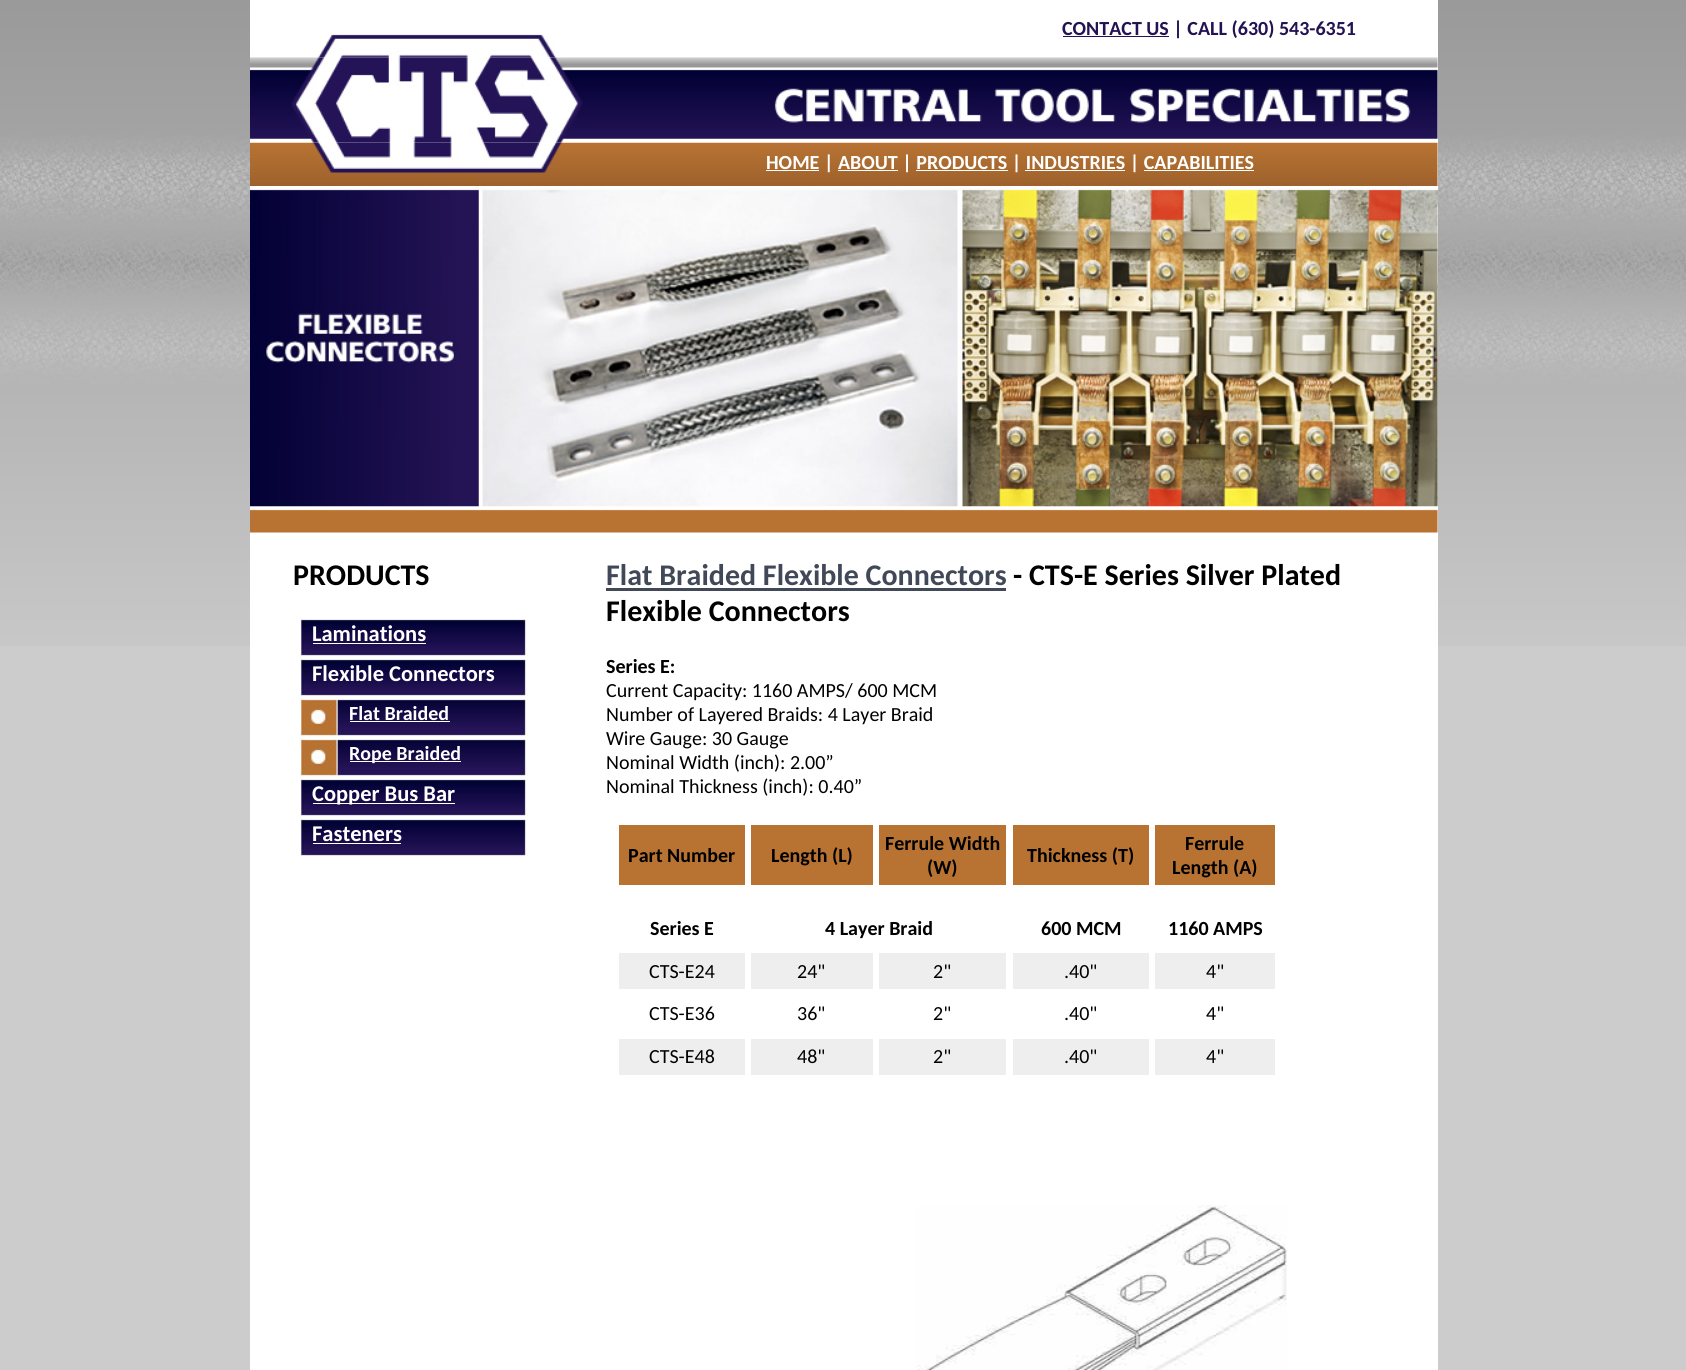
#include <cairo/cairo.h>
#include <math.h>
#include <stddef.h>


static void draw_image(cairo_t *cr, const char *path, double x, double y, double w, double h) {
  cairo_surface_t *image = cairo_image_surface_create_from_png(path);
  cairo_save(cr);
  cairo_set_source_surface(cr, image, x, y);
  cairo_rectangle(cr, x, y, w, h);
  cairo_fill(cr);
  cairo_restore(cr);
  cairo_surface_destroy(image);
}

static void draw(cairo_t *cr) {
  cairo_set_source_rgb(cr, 204 / 255.0, 204 / 255.0, 204 / 255.0);
  cairo_paint(cr);
  draw_image(cr, "images/1.png", 0, 0, 1686, 646);
  cairo_set_source_rgb(cr, 1, 1, 1);
  cairo_rectangle(cr, 250, 0, 1188, 1370);
  cairo_fill(cr);
  draw_image(cr, "images/2.png", 318, 34, 238, 24);
  cairo_set_source_rgb(cr, 36 / 255.0, 19 / 255.0, 83 / 255.0);
  cairo_rectangle(cr, 1063, 36, 106, 1);
  cairo_fill(cr);
  draw_image(cr, "images/4.png", 250, 142, 1188, 44);
  draw_image(cr, "images/3.png", 250, 57, 1188, 86);
  cairo_set_source_rgb(cr, 1, 1, 1);
  cairo_rectangle(cr, 766, 170, 53, 1);
  cairo_fill(cr);
  cairo_rectangle(cr, 838, 170, 60, 1);
  cairo_fill(cr);
  cairo_rectangle(cr, 916, 170, 92, 1);
  cairo_fill(cr);
  cairo_rectangle(cr, 1025, 170, 100, 1);
  cairo_fill(cr);
  cairo_rectangle(cr, 1144, 170, 110, 1);
  cairo_fill(cr);
  draw_image(cr, "images/5.png", 1437, 189, 1, 317);
  draw_image(cr, "images/6.png", 250, 186, 1188, 321);
  draw_image(cr, "images/7.png", 250, 509, 1188, 24);
  draw_image(cr, "images/8.png", 300, 618, 227, 39);
  cairo_rectangle(cr, 313, 643, 113, 1);
  cairo_fill(cr);
  draw_image(cr, "images/8.png", 300, 658, 227, 39);
  draw_image(cr, "images/9.png", 300, 698, 227, 39);
  cairo_rectangle(cr, 350, 721, 100, 1);
  cairo_fill(cr);
  draw_image(cr, "images/9.png", 300, 738, 227, 39);
  cairo_rectangle(cr, 350, 761, 111, 1);
  cairo_fill(cr);
  draw_image(cr, "images/10.png", 300, 778, 227, 39);
  cairo_rectangle(cr, 313, 803, 142, 1);
  cairo_fill(cr);
  draw_image(cr, "images/8.png", 300, 818, 227, 39);
  cairo_rectangle(cr, 313, 843, 88, 1);
  cairo_fill(cr);
  cairo_set_source_rgb(cr, 65 / 255.0, 73 / 255.0, 88 / 255.0);
  cairo_rectangle(cr, 606, 588, 400, 3);
  cairo_fill(cr);
  cairo_set_source_rgb(cr, 184 / 255.0, 115 / 255.0, 50 / 255.0);
  cairo_rectangle(cr, 619, 825, 126, 60);
  cairo_fill(cr);
  cairo_rectangle(cr, 751, 825, 122, 60);
  cairo_fill(cr);
  cairo_rectangle(cr, 879, 825, 127, 60);
  cairo_fill(cr);
  cairo_rectangle(cr, 1013, 825, 136, 60);
  cairo_fill(cr);
  cairo_rectangle(cr, 1155, 825, 120, 60);
  cairo_fill(cr);
  cairo_set_source_rgb(cr, 238 / 255.0, 238 / 255.0, 238 / 255.0);
  cairo_rectangle(cr, 619, 953, 126, 36);
  cairo_fill(cr);
  cairo_rectangle(cr, 751, 953, 122, 36);
  cairo_fill(cr);
  cairo_rectangle(cr, 879, 953, 127, 36);
  cairo_fill(cr);
  cairo_rectangle(cr, 1013, 953, 136, 36);
  cairo_fill(cr);
  cairo_rectangle(cr, 1155, 953, 120, 36);
  cairo_fill(cr);
  cairo_rectangle(cr, 619, 1039, 126, 36);
  cairo_fill(cr);
  cairo_rectangle(cr, 751, 1039, 122, 36);
  cairo_fill(cr);
  cairo_rectangle(cr, 879, 1039, 127, 36);
  cairo_fill(cr);
  cairo_rectangle(cr, 1013, 1039, 136, 36);
  cairo_fill(cr);
  cairo_rectangle(cr, 1155, 1039, 120, 36);
  cairo_fill(cr);
  draw_image(cr, "images/11.png", 916, 1205, 371, 165);
  cairo_select_font_face(cr, "Carlito", CAIRO_FONT_SLANT_NORMAL, CAIRO_FONT_WEIGHT_BOLD);
  cairo_set_font_size(cr, 20);
  cairo_set_source_rgb(cr, 36 / 255.0, 19 / 255.0, 83 / 255.0);
  cairo_move_to(cr, 1062, 35);
  cairo_show_text(cr, "CONTACT US | CALL (630) 543-6351");
  cairo_set_source_rgb(cr, 1, 1, 1);
  cairo_move_to(cr, 766, 169);
  cairo_show_text(cr, "HOME | ABOUT | PRODUCTS | INDUSTRIES | CAPABILITIES");
  cairo_set_font_size(cr, 30);
  cairo_set_source_rgb(cr, 0, 0, 0);
  cairo_move_to(cr, 293, 585);
  cairo_show_text(cr, "PRODUCTS");
  cairo_set_font_size(cr, 22.5);
  cairo_set_source_rgb(cr, 1, 1, 1);
  cairo_move_to(cr, 312, 641);
  cairo_show_text(cr, "Laminations");
  cairo_move_to(cr, 312, 681);
  cairo_show_text(cr, "Flexible Connectors");
  cairo_set_font_size(cr, 20);
  cairo_move_to(cr, 349, 720);
  cairo_show_text(cr, "Flat Braided");
  cairo_move_to(cr, 349, 760);
  cairo_show_text(cr, "Rope Braided");
  cairo_set_font_size(cr, 22.5);
  cairo_move_to(cr, 312, 801);
  cairo_show_text(cr, "Copper Bus Bar");
  cairo_move_to(cr, 312, 841);
  cairo_show_text(cr, "Fasteners");
  cairo_set_font_size(cr, 30);
  cairo_set_source_rgb(cr, 65 / 255.0, 73 / 255.0, 88 / 255.0);
  cairo_move_to(cr, 606, 585);
  cairo_show_text(cr, "Flat Braided Flexible Connectors");
  cairo_set_source_rgb(cr, 0, 0, 0);
  cairo_move_to(cr, 1013, 585);
  cairo_show_text(cr, "- CTS-E Series Silver Plated");
  cairo_move_to(cr, 606, 621);
  cairo_show_text(cr, "Flexible Connectors");
  cairo_set_font_size(cr, 20);
  cairo_move_to(cr, 606, 673);
  cairo_show_text(cr, "Series E:");
  cairo_select_font_face(cr, "Carlito", CAIRO_FONT_SLANT_NORMAL, CAIRO_FONT_WEIGHT_NORMAL);
  cairo_move_to(cr, 606, 697);
  cairo_show_text(cr, "Current Capacity: 1160 AMPS/ 600 MCM");
  cairo_move_to(cr, 606, 721);
  cairo_show_text(cr, "Number of Layered Braids: 4 Layer Braid");
  cairo_move_to(cr, 606, 745);
  cairo_show_text(cr, "Wire Gauge: 30 Gauge");
  cairo_move_to(cr, 606, 769);
  cairo_show_text(cr, "Nominal Width (inch): 2.00”");
  cairo_move_to(cr, 606, 793);
  cairo_show_text(cr, "Nominal Thickness (inch): 0.40”");
  cairo_select_font_face(cr, "Carlito", CAIRO_FONT_SLANT_NORMAL, CAIRO_FONT_WEIGHT_BOLD);
  cairo_move_to(cr, 628, 862);
  cairo_show_text(cr, "Part Number");
  cairo_move_to(cr, 771, 862);
  cairo_show_text(cr, "Length (L)");
  cairo_move_to(cr, 885, 850);
  cairo_show_text(cr, "Ferrule Width");
  cairo_move_to(cr, 927, 874);
  cairo_show_text(cr, "(W)");
  cairo_move_to(cr, 1027, 862);
  cairo_show_text(cr, "Thickness (T)");
  cairo_move_to(cr, 1185, 850);
  cairo_show_text(cr, "Ferrule");
  cairo_move_to(cr, 1172, 874);
  cairo_show_text(cr, "Length (A)");
  cairo_move_to(cr, 650, 935);
  cairo_show_text(cr, "Series E");
  cairo_move_to(cr, 825, 935);
  cairo_show_text(cr, "4 Layer Braid");
  cairo_move_to(cr, 1041, 935);
  cairo_show_text(cr, "600 MCM");
  cairo_move_to(cr, 1168, 935);
  cairo_show_text(cr, "1160 AMPS");
  cairo_select_font_face(cr, "Carlito", CAIRO_FONT_SLANT_NORMAL, CAIRO_FONT_WEIGHT_NORMAL);
  cairo_move_to(cr, 649, 978);
  cairo_show_text(cr, "CTS-E24");
  cairo_move_to(cr, 797, 978);
  cairo_show_text(cr, "24\"");
  cairo_move_to(cr, 933, 978);
  cairo_show_text(cr, "2\"");
  cairo_move_to(cr, 1064, 978);
  cairo_show_text(cr, ".40\"");
  cairo_move_to(cr, 1206, 978);
  cairo_show_text(cr, "4\"");
  cairo_move_to(cr, 649, 1020);
  cairo_show_text(cr, "CTS-E36");
  cairo_move_to(cr, 797, 1020);
  cairo_show_text(cr, "36\"");
  cairo_move_to(cr, 933, 1020);
  cairo_show_text(cr, "2\"");
  cairo_move_to(cr, 1064, 1020);
  cairo_show_text(cr, ".40\"");
  cairo_move_to(cr, 1206, 1020);
  cairo_show_text(cr, "4\"");
  cairo_move_to(cr, 649, 1063);
  cairo_show_text(cr, "CTS-E48");
  cairo_move_to(cr, 797, 1063);
  cairo_show_text(cr, "48\"");
  cairo_move_to(cr, 933, 1063);
  cairo_show_text(cr, "2\"");
  cairo_move_to(cr, 1064, 1063);
  cairo_show_text(cr, ".40\"");
  cairo_move_to(cr, 1206, 1063);
  cairo_show_text(cr, "4\"");
}

int main(void) {
  cairo_surface_t *surface = cairo_image_surface_create(CAIRO_FORMAT_RGB24, 1686, 1370);
  cairo_t *cr = cairo_create(surface);
  cairo_font_options_t *options = cairo_font_options_create();
  cairo_font_options_set_hint_metrics(options, CAIRO_HINT_METRICS_OFF);
  cairo_font_options_set_hint_style(options, CAIRO_HINT_STYLE_NONE);
  cairo_set_font_options(cr, options);
  cairo_set_miter_limit(cr, 4);
  draw(cr);
  cairo_surface_write_to_png(surface, "out.png");
  cairo_font_options_destroy(options);
  cairo_destroy(cr);
  cairo_surface_destroy(surface);
  return 0;
}
